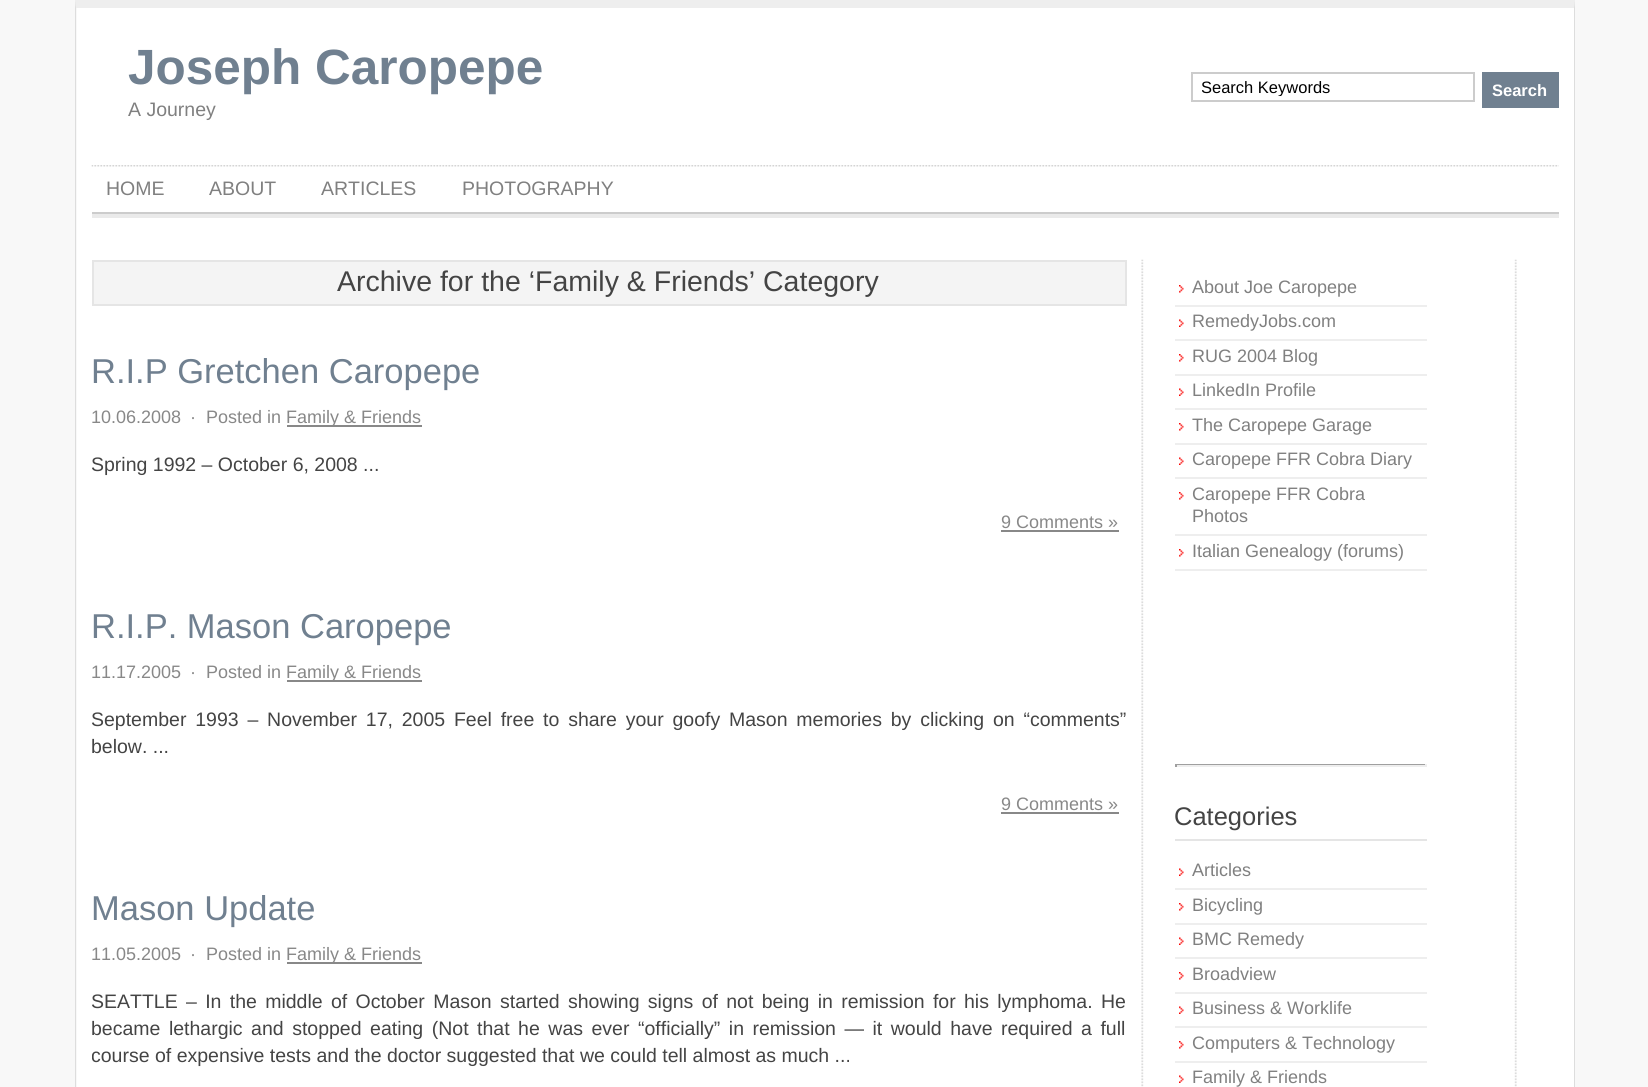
#include <cairo/cairo.h>
#include <math.h>
#include <stddef.h>


static void draw_spaced(cairo_t *cr, double x, double y, const char *s, double letter, double word) {
  cairo_move_to(cr, x, y);
  while (*s) {
    char ch[5] = {0};
    int n = 0;
    do ch[n++] = *s++; while ((*s & 0xC0) == 0x80);
    cairo_show_text(cr, ch);
    cairo_rel_move_to(cr, letter + word * (*ch == ' '), 0);
  }
}

static void draw_image(cairo_t *cr, const char *path, double x, double y, double w, double h) {
  cairo_surface_t *image = cairo_image_surface_create_from_png(path);
  cairo_save(cr);
  cairo_set_source_surface(cr, image, x, y);
  cairo_rectangle(cr, x, y, w, h);
  cairo_fill(cr);
  cairo_restore(cr);
  cairo_surface_destroy(image);
}

static void draw(cairo_t *cr) {
  cairo_set_source_rgb(cr, 248 / 255.0, 248 / 255.0, 248 / 255.0);
  cairo_paint(cr);
  cairo_set_source_rgb(cr, 1, 1, 1);
  cairo_rectangle(cr, 77, 8, 1497, 1079);
  cairo_fill(cr);
  cairo_set_source_rgb(cr, 238 / 255.0, 238 / 255.0, 238 / 255.0);
  cairo_new_path(cr);
  cairo_move_to(cr, 75, 0);
  cairo_line_to(cr, 1575, 0);
  cairo_line_to(cr, 1574, 8);
  cairo_line_to(cr, 76, 8);
  cairo_close_path(cr);
  cairo_fill(cr);
  cairo_set_source_rgb(cr, 221 / 255.0, 221 / 255.0, 221 / 255.0);
  cairo_new_path(cr);
  cairo_move_to(cr, 1575, 0);
  cairo_line_to(cr, 1575, 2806);
  cairo_line_to(cr, 1574, 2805);
  cairo_line_to(cr, 1574, 8);
  cairo_close_path(cr);
  cairo_fill(cr);
  cairo_new_path(cr);
  cairo_move_to(cr, 75, 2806);
  cairo_line_to(cr, 75, 0);
  cairo_line_to(cr, 76, 8);
  cairo_line_to(cr, 76, 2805);
  cairo_close_path(cr);
  cairo_fill(cr);
  cairo_set_source_rgb(cr, 234 / 255.0, 234 / 255.0, 234 / 255.0);
  cairo_rectangle(cr, 92, 214, 1467, 4);
  cairo_fill(cr);
  cairo_rectangle(cr, 1192, 73, 282, 28);
  cairo_set_source_rgb(cr, 204 / 255.0, 204 / 255.0, 204 / 255.0);
  cairo_stroke(cr);
  cairo_set_source_rgb(cr, 112 / 255.0, 128 / 255.0, 144 / 255.0);
  cairo_rectangle(cr, 1482, 72, 77, 36);
  cairo_fill(cr);
  draw_image(cr, "images/1.png", 91, 165, 1468, 2);
  cairo_set_source_rgb(cr, 204 / 255.0, 204 / 255.0, 204 / 255.0);
  cairo_rectangle(cr, 92, 212, 1467, 2);
  cairo_fill(cr);
  draw_image(cr, "images/2.png", 1141, 259, 376, 828);
  cairo_set_source_rgb(cr, 244 / 255.0, 244 / 255.0, 244 / 255.0);
  cairo_rectangle(cr, 93, 261, 1033, 44);
  cairo_fill_preserve(cr);
  cairo_set_source_rgb(cr, 229 / 255.0, 229 / 255.0, 229 / 255.0);
  cairo_stroke(cr);
  cairo_set_source_rgb(cr, 136 / 255.0, 136 / 255.0, 136 / 255.0);
  cairo_rectangle(cr, 287, 425, 135, 2);
  cairo_fill(cr);
  cairo_rectangle(cr, 1001, 530, 118, 2);
  cairo_fill(cr);
  cairo_rectangle(cr, 287, 680, 135, 2);
  cairo_fill(cr);
  cairo_rectangle(cr, 1001, 812, 118, 2);
  cairo_fill(cr);
  cairo_rectangle(cr, 287, 962, 135, 2);
  cairo_fill(cr);
  draw_image(cr, "images/3.png", 1179, 285, 5, 8);
  cairo_set_source_rgb(cr, 238 / 255.0, 238 / 255.0, 238 / 255.0);
  cairo_rectangle(cr, 1175, 305, 252, 2);
  cairo_fill(cr);
  draw_image(cr, "images/4.png", 1179, 319, 5, 8);
  cairo_rectangle(cr, 1175, 339, 252, 2);
  cairo_fill(cr);
  draw_image(cr, "images/3.png", 1179, 354, 5, 8);
  cairo_rectangle(cr, 1175, 374, 252, 2);
  cairo_fill(cr);
  draw_image(cr, "images/4.png", 1179, 388, 5, 8);
  cairo_rectangle(cr, 1175, 408, 252, 2);
  cairo_fill(cr);
  draw_image(cr, "images/3.png", 1179, 423, 5, 8);
  cairo_rectangle(cr, 1175, 443, 252, 2);
  cairo_fill(cr);
  draw_image(cr, "images/4.png", 1179, 457, 5, 8);
  cairo_rectangle(cr, 1175, 477, 252, 2);
  cairo_fill(cr);
  draw_image(cr, "images/3.png", 1179, 492, 5, 8);
  cairo_rectangle(cr, 1175, 534, 252, 2);
  cairo_fill(cr);
  draw_image(cr, "images/3.png", 1179, 549, 5, 8);
  cairo_rectangle(cr, 1175, 569, 252, 2);
  cairo_fill(cr);
  cairo_set_source_rgb(cr, 159 / 255.0, 159 / 255.0, 159 / 255.0);
  cairo_rectangle(cr, 1175, 764, 252, 1);
  cairo_fill(cr);
  cairo_set_source_rgb(cr, 238 / 255.0, 238 / 255.0, 238 / 255.0);
  cairo_rectangle(cr, 1425, 764, 2, 3);
  cairo_fill(cr);
  cairo_rectangle(cr, 1175, 765, 252, 2);
  cairo_fill(cr);
  cairo_set_source_rgb(cr, 159 / 255.0, 159 / 255.0, 159 / 255.0);
  cairo_rectangle(cr, 1175, 764, 2, 3);
  cairo_fill(cr);
  cairo_set_source_rgb(cr, 229 / 255.0, 229 / 255.0, 229 / 255.0);
  cairo_rectangle(cr, 1175, 839, 252, 2);
  cairo_fill(cr);
  draw_image(cr, "images/4.png", 1179, 868, 5, 8);
  cairo_set_source_rgb(cr, 238 / 255.0, 238 / 255.0, 238 / 255.0);
  cairo_rectangle(cr, 1175, 888, 252, 2);
  cairo_fill(cr);
  draw_image(cr, "images/3.png", 1179, 903, 5, 8);
  cairo_rectangle(cr, 1175, 923, 252, 2);
  cairo_fill(cr);
  draw_image(cr, "images/4.png", 1179, 937, 5, 8);
  cairo_rectangle(cr, 1175, 957, 252, 2);
  cairo_fill(cr);
  draw_image(cr, "images/3.png", 1179, 972, 5, 8);
  cairo_rectangle(cr, 1175, 992, 252, 2);
  cairo_fill(cr);
  draw_image(cr, "images/4.png", 1179, 1006, 5, 8);
  cairo_rectangle(cr, 1175, 1026, 252, 2);
  cairo_fill(cr);
  draw_image(cr, "images/3.png", 1179, 1041, 5, 8);
  cairo_rectangle(cr, 1175, 1061, 252, 2);
  cairo_fill(cr);
  draw_image(cr, "images/4.png", 1179, 1075, 5, 8);
  cairo_select_font_face(cr, "Liberation Sans", CAIRO_FONT_SLANT_NORMAL, CAIRO_FONT_WEIGHT_BOLD);
  cairo_set_font_size(cr, 49.5);
  cairo_set_source_rgb(cr, 112 / 255.0, 128 / 255.0, 144 / 255.0);
  cairo_move_to(cr, 128, 84);
  cairo_show_text(cr, "Joseph Caropepe");
  cairo_select_font_face(cr, "Liberation Sans", CAIRO_FONT_SLANT_NORMAL, CAIRO_FONT_WEIGHT_NORMAL);
  cairo_set_font_size(cr, 19.5);
  cairo_set_source_rgb(cr, 128 / 255.0, 128 / 255.0, 128 / 255.0);
  cairo_move_to(cr, 128, 116);
  cairo_show_text(cr, "A Journey");
  cairo_save(cr);
  cairo_rectangle(cr, 1202, 78, 262, 18);
  cairo_clip(cr);
  cairo_set_font_size(cr, 16.5);
  cairo_set_source_rgb(cr, 0, 0, 0);
  cairo_move_to(cr, 1201, 93);
  cairo_show_text(cr, "Search Keywords");
  cairo_restore(cr);
  cairo_select_font_face(cr, "Liberation Sans", CAIRO_FONT_SLANT_NORMAL, CAIRO_FONT_WEIGHT_BOLD);
  cairo_set_font_size(cr, 16.5);
  cairo_set_source_rgb(cr, 1, 1, 1);
  cairo_move_to(cr, 1492, 96);
  cairo_show_text(cr, "Search");
  cairo_select_font_face(cr, "Liberation Sans", CAIRO_FONT_SLANT_NORMAL, CAIRO_FONT_WEIGHT_NORMAL);
  cairo_set_font_size(cr, 19.5);
  cairo_set_source_rgb(cr, 128 / 255.0, 128 / 255.0, 128 / 255.0);
  cairo_move_to(cr, 106, 195);
  cairo_show_text(cr, "HOME");
  cairo_move_to(cr, 209, 195);
  cairo_show_text(cr, "ABOUT");
  cairo_move_to(cr, 321, 195);
  cairo_show_text(cr, "ARTICLES");
  cairo_move_to(cr, 462, 195);
  cairo_show_text(cr, "PHOTOGRAPHY");
  cairo_set_font_size(cr, 28.5);
  cairo_set_source_rgb(cr, 68 / 255.0, 68 / 255.0, 68 / 255.0);
  cairo_move_to(cr, 337, 291);
  cairo_show_text(cr, "Archive for the ‘Family & Friends’ Category");
  cairo_set_font_size(cr, 34.5);
  cairo_set_source_rgb(cr, 112 / 255.0, 128 / 255.0, 144 / 255.0);
  cairo_move_to(cr, 91, 383);
  cairo_show_text(cr, "R.I.P Gretchen Caropepe");
  cairo_set_font_size(cr, 18);
  cairo_set_source_rgb(cr, 136 / 255.0, 136 / 255.0, 136 / 255.0);
  cairo_move_to(cr, 91, 423);
  cairo_show_text(cr, "10.06.2008");
  cairo_move_to(cr, 190, 423);
  cairo_show_text(cr, "·");
  cairo_move_to(cr, 206, 423);
  cairo_show_text(cr, "Posted in");
  cairo_move_to(cr, 286, 423);
  cairo_show_text(cr, "Family & Friends");
  cairo_set_font_size(cr, 19.5);
  cairo_set_source_rgb(cr, 68 / 255.0, 68 / 255.0, 68 / 255.0);
  cairo_move_to(cr, 91, 471);
  cairo_show_text(cr, "Spring 1992 – October 6, 2008 ...");
  cairo_set_font_size(cr, 18);
  cairo_set_source_rgb(cr, 136 / 255.0, 136 / 255.0, 136 / 255.0);
  cairo_move_to(cr, 1001, 528);
  cairo_show_text(cr, "9 Comments »");
  cairo_set_font_size(cr, 34.5);
  cairo_set_source_rgb(cr, 112 / 255.0, 128 / 255.0, 144 / 255.0);
  cairo_move_to(cr, 91, 638);
  cairo_show_text(cr, "R.I.P. Mason Caropepe");
  cairo_set_font_size(cr, 18);
  cairo_set_source_rgb(cr, 136 / 255.0, 136 / 255.0, 136 / 255.0);
  cairo_move_to(cr, 91, 678);
  cairo_show_text(cr, "11.17.2005");
  cairo_move_to(cr, 190, 678);
  cairo_show_text(cr, "·");
  cairo_move_to(cr, 206, 678);
  cairo_show_text(cr, "Posted in");
  cairo_move_to(cr, 286, 678);
  cairo_show_text(cr, "Family & Friends");
  cairo_set_font_size(cr, 19.5);
  cairo_set_source_rgb(cr, 68 / 255.0, 68 / 255.0, 68 / 255.0);
  draw_spaced(cr, 91, 726, "September 1993 – November 17, 2005 Feel free to share your goofy Mason memories by clicking on “comments”", 0, 3.4);
  cairo_move_to(cr, 91, 753);
  cairo_show_text(cr, "below. ...");
  cairo_set_font_size(cr, 18);
  cairo_set_source_rgb(cr, 136 / 255.0, 136 / 255.0, 136 / 255.0);
  cairo_move_to(cr, 1001, 810);
  cairo_show_text(cr, "9 Comments »");
  cairo_set_font_size(cr, 34.5);
  cairo_set_source_rgb(cr, 112 / 255.0, 128 / 255.0, 144 / 255.0);
  cairo_move_to(cr, 91, 920);
  cairo_show_text(cr, "Mason Update");
  cairo_set_font_size(cr, 18);
  cairo_set_source_rgb(cr, 136 / 255.0, 136 / 255.0, 136 / 255.0);
  cairo_move_to(cr, 91, 960);
  cairo_show_text(cr, "11.05.2005");
  cairo_move_to(cr, 190, 960);
  cairo_show_text(cr, "·");
  cairo_move_to(cr, 206, 960);
  cairo_show_text(cr, "Posted in");
  cairo_move_to(cr, 286, 960);
  cairo_show_text(cr, "Family & Friends");
  cairo_set_font_size(cr, 19.5);
  cairo_set_source_rgb(cr, 68 / 255.0, 68 / 255.0, 68 / 255.0);
  draw_spaced(cr, 91, 1008, "SEATTLE – In the middle of October Mason started showing signs of not being in remission for his lymphoma. He", 0, 2.9);
  draw_spaced(cr, 91, 1035, "became lethargic and stopped eating (Not that he was ever “officially” in remission — it would have required a full", 0, 3.1);
  cairo_save(cr);
  cairo_rectangle(cr, 92, 260, 1035, 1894);
  cairo_clip(cr);
  cairo_move_to(cr, 91, 1062);
  cairo_show_text(cr, "course of expensive tests and the doctor suggested that we could tell almost as much ...");
  cairo_restore(cr);
  cairo_set_font_size(cr, 18);
  cairo_set_source_rgb(cr, 128 / 255.0, 128 / 255.0, 128 / 255.0);
  cairo_move_to(cr, 1192, 293);
  cairo_show_text(cr, "About Joe Caropepe");
  cairo_move_to(cr, 1192, 327);
  cairo_show_text(cr, "RemedyJobs.com");
  cairo_move_to(cr, 1192, 362);
  cairo_show_text(cr, "RUG 2004 Blog");
  cairo_move_to(cr, 1192, 396);
  cairo_show_text(cr, "LinkedIn Profile");
  cairo_move_to(cr, 1192, 431);
  cairo_show_text(cr, "The Caropepe Garage");
  cairo_move_to(cr, 1192, 465);
  cairo_show_text(cr, "Caropepe FFR Cobra Diary");
  cairo_move_to(cr, 1192, 500);
  cairo_show_text(cr, "Caropepe FFR Cobra");
  cairo_move_to(cr, 1192, 522);
  cairo_show_text(cr, "Photos");
  cairo_move_to(cr, 1192, 557);
  cairo_show_text(cr, "Italian Genealogy (forums)");
  cairo_set_font_size(cr, 25.5);
  cairo_set_source_rgb(cr, 68 / 255.0, 68 / 255.0, 68 / 255.0);
  cairo_move_to(cr, 1174, 825);
  cairo_show_text(cr, "Categories");
  cairo_set_font_size(cr, 18);
  cairo_set_source_rgb(cr, 128 / 255.0, 128 / 255.0, 128 / 255.0);
  cairo_move_to(cr, 1192, 876);
  cairo_show_text(cr, "Articles");
  cairo_move_to(cr, 1192, 911);
  cairo_show_text(cr, "Bicycling");
  cairo_move_to(cr, 1192, 945);
  cairo_show_text(cr, "BMC Remedy");
  cairo_move_to(cr, 1192, 980);
  cairo_show_text(cr, "Broadview");
  cairo_move_to(cr, 1192, 1014);
  cairo_show_text(cr, "Business & Worklife");
  cairo_move_to(cr, 1192, 1049);
  cairo_show_text(cr, "Computers & Technology");
  cairo_move_to(cr, 1192, 1083);
  cairo_show_text(cr, "Family & Friends");
}

int main(void) {
  cairo_surface_t *surface = cairo_image_surface_create(CAIRO_FORMAT_RGB24, 1648, 1087);
  cairo_t *cr = cairo_create(surface);
  cairo_font_options_t *options = cairo_font_options_create();
  cairo_font_options_set_hint_metrics(options, CAIRO_HINT_METRICS_OFF);
  cairo_font_options_set_hint_style(options, CAIRO_HINT_STYLE_NONE);
  cairo_set_font_options(cr, options);
  cairo_set_miter_limit(cr, 4);
  draw(cr);
  cairo_surface_write_to_png(surface, "out.png");
  cairo_font_options_destroy(options);
  cairo_destroy(cr);
  cairo_surface_destroy(surface);
  return 0;
}
